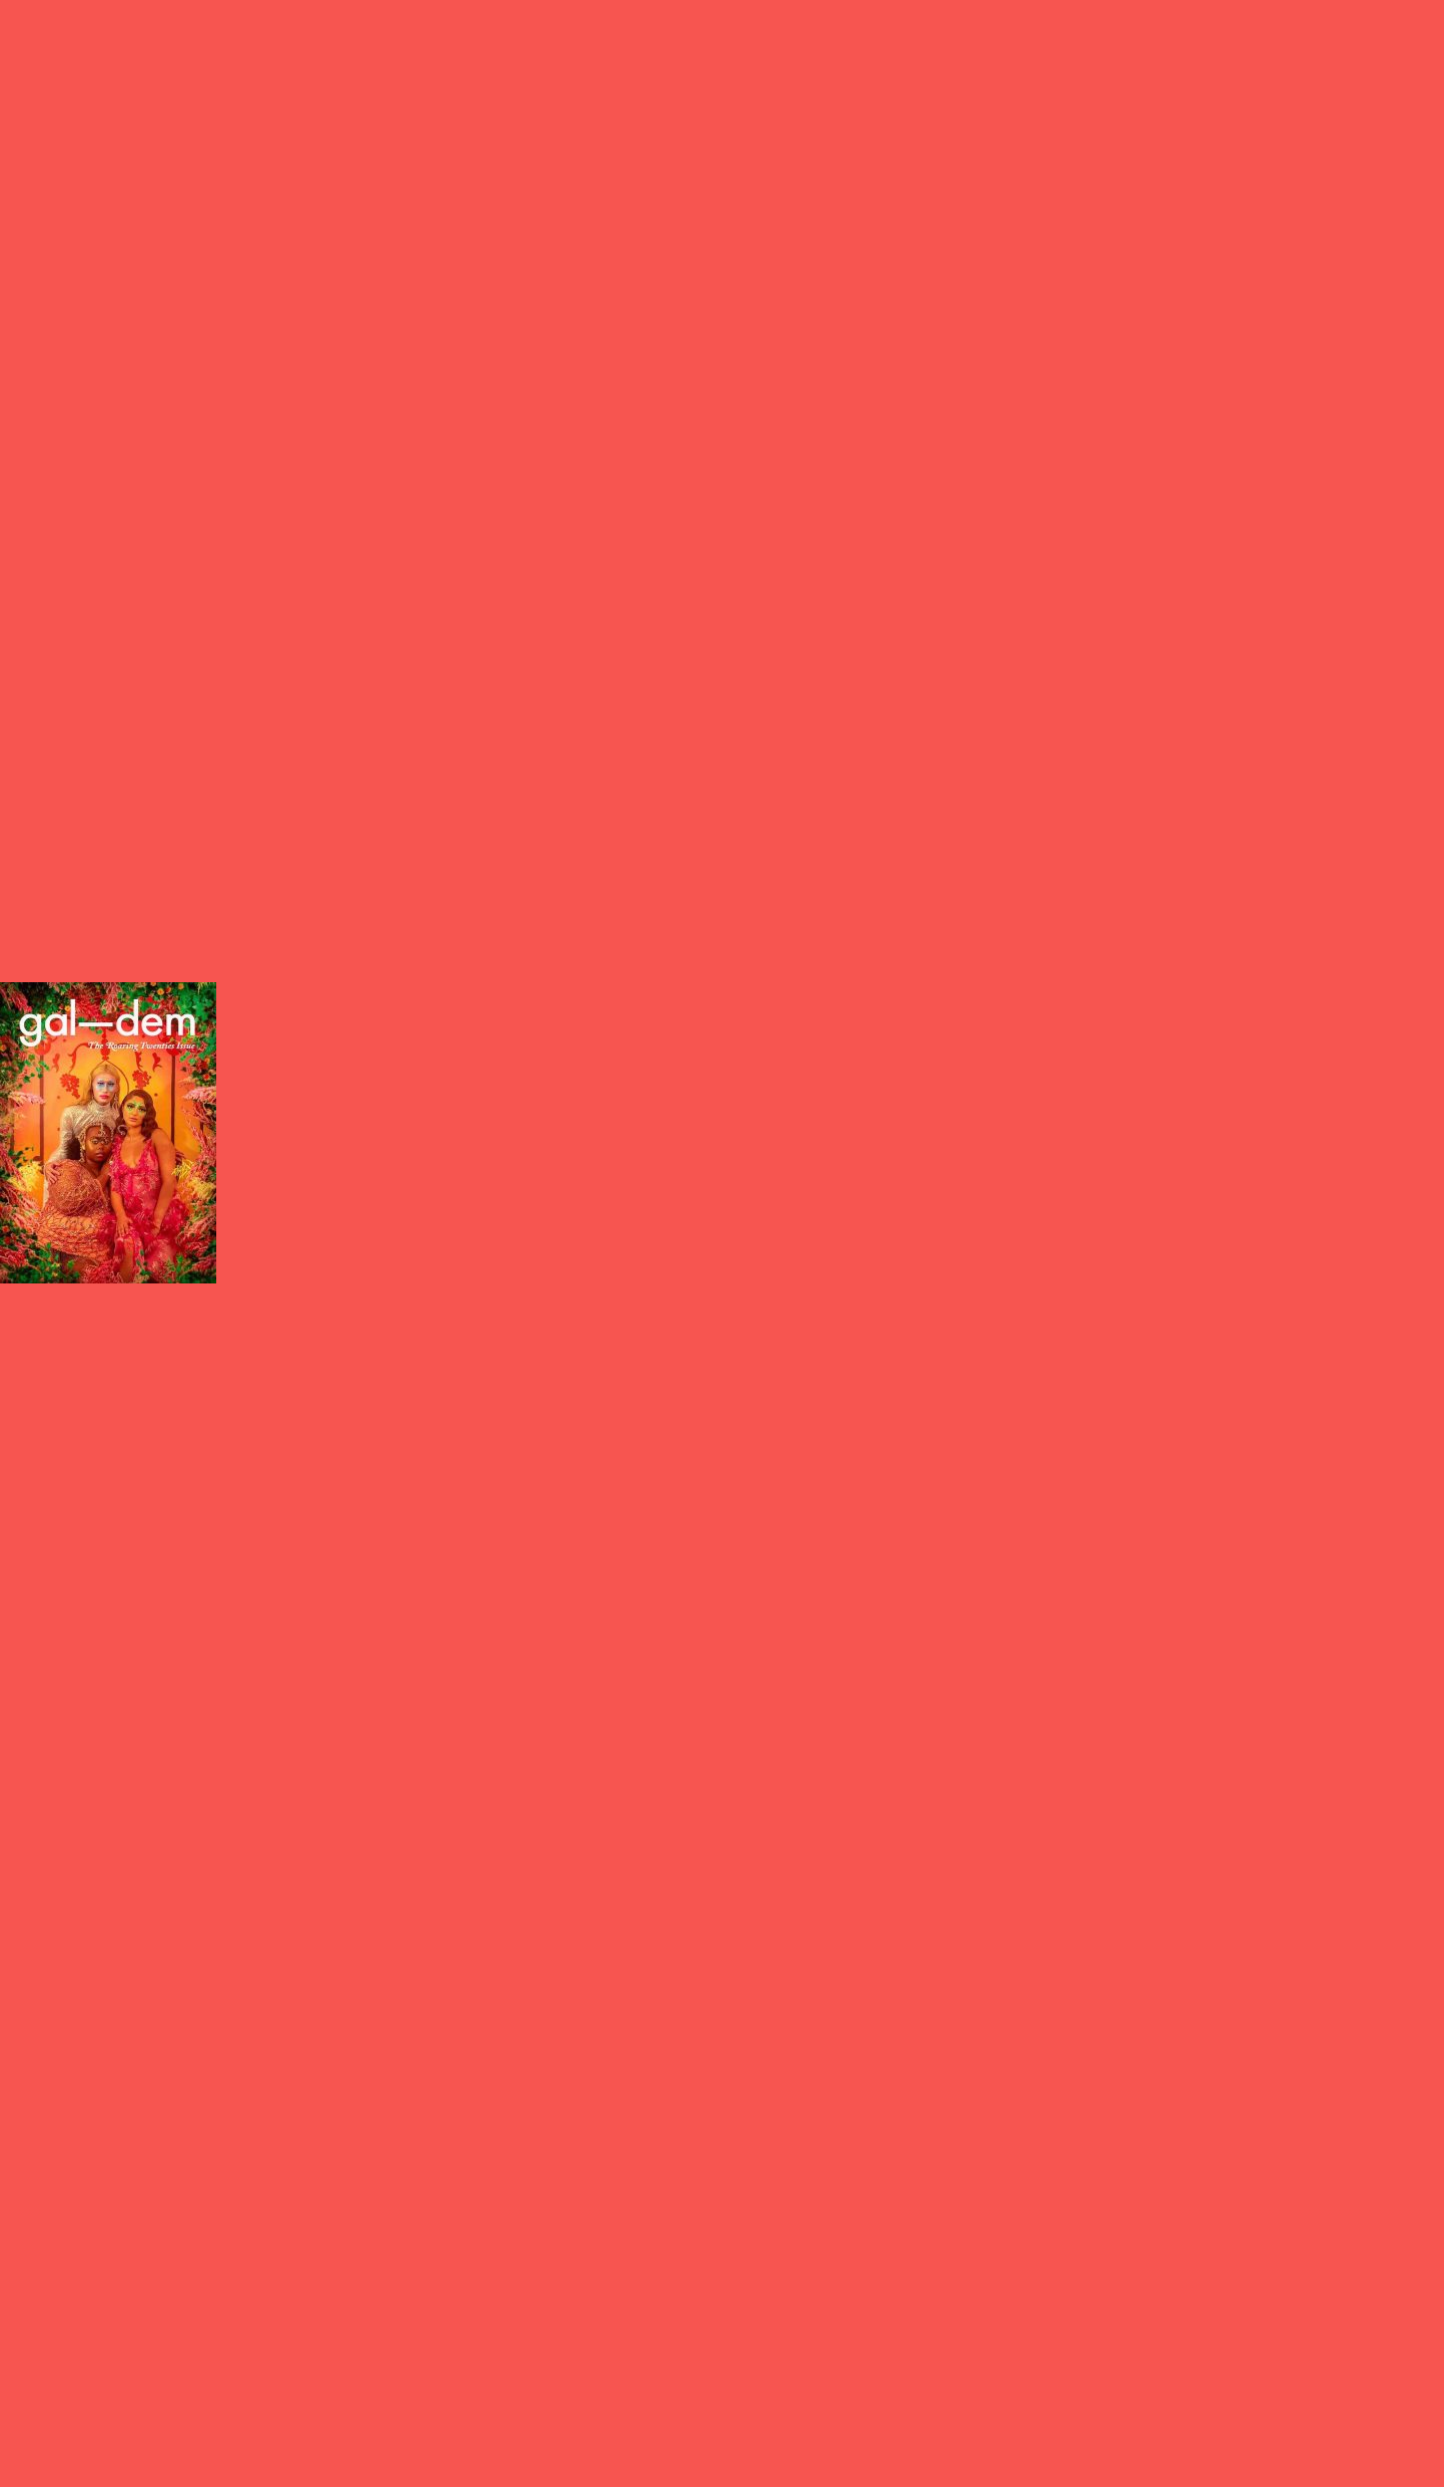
#include <cairo/cairo.h>
#include <math.h>
#include <stddef.h>


static void draw_image(cairo_t *cr, const char *path, double x, double y, double w, double h) {
  cairo_surface_t *image = cairo_image_surface_create_from_png(path);
  cairo_save(cr);
  cairo_set_source_surface(cr, image, x, y);
  cairo_rectangle(cr, x, y, w, h);
  cairo_fill(cr);
  cairo_restore(cr);
  cairo_surface_destroy(image);
}

static void draw(cairo_t *cr) {
  cairo_set_source_rgb(cr, 247 / 255.0, 85 / 255.0, 80 / 255.0);
  cairo_paint(cr);
  draw_image(cr, "images/1.png", 0, 982, 217, 302);
}

int main(void) {
  cairo_surface_t *surface = cairo_image_surface_create(CAIRO_FORMAT_RGB24, 1444, 2487);
  cairo_t *cr = cairo_create(surface);
  cairo_font_options_t *options = cairo_font_options_create();
  cairo_font_options_set_hint_metrics(options, CAIRO_HINT_METRICS_OFF);
  cairo_font_options_set_hint_style(options, CAIRO_HINT_STYLE_NONE);
  cairo_set_font_options(cr, options);
  cairo_set_miter_limit(cr, 4);
  draw(cr);
  cairo_surface_write_to_png(surface, "out.png");
  cairo_font_options_destroy(options);
  cairo_destroy(cr);
  cairo_surface_destroy(surface);
  return 0;
}
